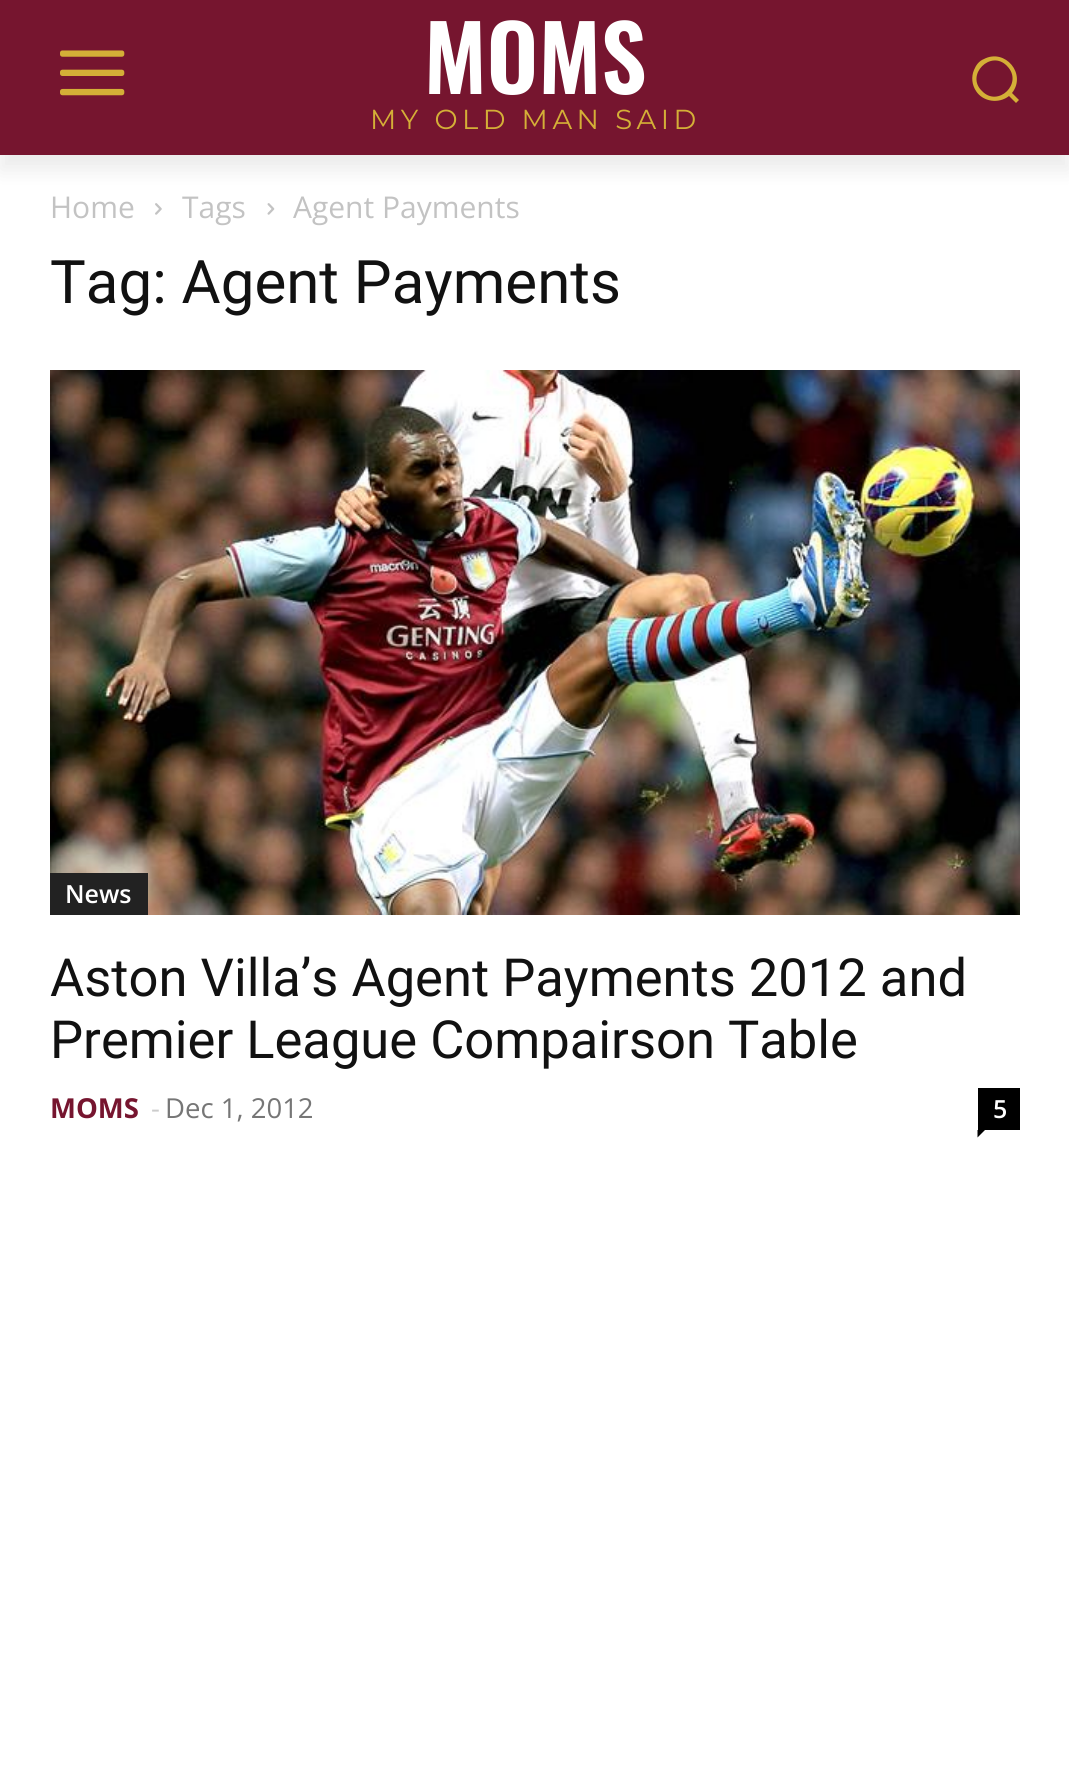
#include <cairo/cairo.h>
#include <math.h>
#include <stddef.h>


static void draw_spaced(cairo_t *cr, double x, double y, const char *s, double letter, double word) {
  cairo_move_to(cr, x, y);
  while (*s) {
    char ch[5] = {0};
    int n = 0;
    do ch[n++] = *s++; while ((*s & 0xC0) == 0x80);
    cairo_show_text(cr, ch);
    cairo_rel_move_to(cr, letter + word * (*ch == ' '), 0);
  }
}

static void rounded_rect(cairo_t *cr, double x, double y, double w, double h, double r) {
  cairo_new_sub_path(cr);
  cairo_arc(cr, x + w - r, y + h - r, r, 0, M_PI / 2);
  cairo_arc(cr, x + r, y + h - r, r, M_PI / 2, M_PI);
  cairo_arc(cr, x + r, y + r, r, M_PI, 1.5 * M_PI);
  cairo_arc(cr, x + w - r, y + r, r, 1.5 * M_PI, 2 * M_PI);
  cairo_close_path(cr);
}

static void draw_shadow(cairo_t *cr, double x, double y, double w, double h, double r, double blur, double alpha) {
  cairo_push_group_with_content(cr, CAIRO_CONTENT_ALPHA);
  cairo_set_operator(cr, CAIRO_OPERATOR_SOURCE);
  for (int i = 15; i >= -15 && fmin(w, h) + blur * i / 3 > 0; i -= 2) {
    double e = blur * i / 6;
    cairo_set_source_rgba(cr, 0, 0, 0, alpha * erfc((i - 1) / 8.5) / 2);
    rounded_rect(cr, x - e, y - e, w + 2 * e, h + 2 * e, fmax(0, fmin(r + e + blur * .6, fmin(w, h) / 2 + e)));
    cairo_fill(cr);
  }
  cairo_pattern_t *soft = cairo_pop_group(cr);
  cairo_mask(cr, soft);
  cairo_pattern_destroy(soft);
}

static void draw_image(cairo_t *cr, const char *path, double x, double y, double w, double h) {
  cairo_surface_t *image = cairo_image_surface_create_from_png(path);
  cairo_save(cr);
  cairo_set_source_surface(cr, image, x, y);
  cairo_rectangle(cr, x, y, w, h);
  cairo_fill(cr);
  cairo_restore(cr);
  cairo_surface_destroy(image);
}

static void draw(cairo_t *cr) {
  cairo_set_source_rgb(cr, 1, 1, 1);
  cairo_paint(cr);
  cairo_set_source_rgb(cr, 0, 0, 0);
  draw_shadow(cr, 0, 15, 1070, 155, 0, 10, 0.08);
  cairo_set_source_rgb(cr, 118 / 255.0, 21 / 255.0, 47 / 255.0);
  cairo_rectangle(cr, 0, 0, 1069, 155);
  cairo_fill(cr);
  draw_image(cr, "images/1.png", 60, 50, 65, 46);
  cairo_set_source_rgb(cr, 212 / 255.0, 175 / 255.0, 55 / 255.0);
  cairo_new_path(cr);
  cairo_move_to(cr, 1019, 100);
  cairo_line_to(cr, 1012, 93);
  cairo_curve_to(cr, 1027, 74, 1005, 48, 984, 59);
  cairo_curve_to(cr, 979, 61, 976, 65, 974, 70);
  cairo_curve_to(cr, 971, 77, 972, 85, 976, 91);
  cairo_curve_to(cr, 983, 102, 999, 104, 1009, 96);
  cairo_line_to(cr, 1016, 103);
  cairo_close_path(cr);
  cairo_move_to(cr, 982, 91);
  cairo_curve_to(cr, 965, 75, 991, 49, 1007, 66);
  cairo_curve_to(cr, 1024, 83, 998, 108, 982, 91);
  cairo_close_path(cr);
  cairo_fill(cr);
  draw_image(cr, "images/2.png", 155, 203, 7, 12);
  draw_image(cr, "images/3.png", 267, 203, 8, 12);
  draw_image(cr, "images/4.png", 50, 370, 970, 545);
  cairo_set_source_rgb(cr, 34 / 255.0, 34 / 255.0, 34 / 255.0);
  cairo_rectangle(cr, 50, 873, 98, 42);
  cairo_fill(cr);
  cairo_set_source_rgb(cr, 0, 0, 0);
  cairo_rectangle(cr, 978, 1088, 42, 42);
  cairo_fill(cr);
  cairo_new_path(cr);
  cairo_move_to(cr, 977.5, 1130);
  cairo_line_to(cr, 985, 1130);
  cairo_line_to(cr, 977.5, 1137.5);
  cairo_close_path(cr);
  cairo_fill(cr);
  cairo_select_font_face(cr, "Oswald SemiBold", CAIRO_FONT_SLANT_NORMAL, CAIRO_FONT_WEIGHT_NORMAL);
  cairo_set_font_size(cr, 90);
  cairo_set_source_rgb(cr, 1, 1, 1);
  cairo_move_to(cr, 424, 94);
  cairo_show_text(cr, "MOMS");
  cairo_select_font_face(cr, "Montserrat", CAIRO_FONT_SLANT_NORMAL, CAIRO_FONT_WEIGHT_NORMAL);
  cairo_set_font_size(cr, 27.5);
  cairo_set_source_rgb(cr, 212 / 255.0, 175 / 255.0, 55 / 255.0);
  draw_spaced(cr, 370, 129, "MY OLD MAN SAID", 4.5, 0);
  cairo_select_font_face(cr, "Open Sans", CAIRO_FONT_SLANT_NORMAL, CAIRO_FONT_WEIGHT_NORMAL);
  cairo_set_font_size(cr, 30);
  cairo_set_source_rgb(cr, 195 / 255.0, 195 / 255.0, 195 / 255.0);
  cairo_move_to(cr, 50, 218);
  cairo_show_text(cr, "Home");
  cairo_move_to(cr, 182, 218);
  cairo_show_text(cr, "Tags");
  cairo_move_to(cr, 293, 218);
  cairo_show_text(cr, "Agent Payments");
  cairo_select_font_face(cr, "Roboto", CAIRO_FONT_SLANT_NORMAL, CAIRO_FONT_WEIGHT_NORMAL);
  cairo_set_font_size(cr, 60);
  cairo_set_source_rgb(cr, 17 / 255.0, 17 / 255.0, 17 / 255.0);
  cairo_move_to(cr, 50, 303);
  cairo_show_text(cr, "Tag: Agent Payments");
  cairo_select_font_face(cr, "Open Sans SemiBold", CAIRO_FONT_SLANT_NORMAL, CAIRO_FONT_WEIGHT_NORMAL);
  cairo_set_font_size(cr, 25);
  cairo_set_source_rgb(cr, 1, 1, 1);
  cairo_move_to(cr, 65, 903);
  cairo_show_text(cr, "News");
  cairo_select_font_face(cr, "Roboto", CAIRO_FONT_SLANT_NORMAL, CAIRO_FONT_WEIGHT_NORMAL);
  cairo_set_font_size(cr, 52.5);
  cairo_set_source_rgb(cr, 17 / 255.0, 17 / 255.0, 17 / 255.0);
  cairo_move_to(cr, 50, 996);
  cairo_show_text(cr, "Aston Villa’s Agent Payments 2012 and");
  cairo_move_to(cr, 50, 1058);
  cairo_show_text(cr, "Premier League Compairson Table");
  cairo_select_font_face(cr, "Open Sans", CAIRO_FONT_SLANT_NORMAL, CAIRO_FONT_WEIGHT_BOLD);
  cairo_set_font_size(cr, 27.5);
  cairo_set_source_rgb(cr, 118 / 255.0, 21 / 255.0, 47 / 255.0);
  cairo_move_to(cr, 50, 1118);
  cairo_show_text(cr, "MOMS");
  cairo_select_font_face(cr, "Open Sans", CAIRO_FONT_SLANT_NORMAL, CAIRO_FONT_WEIGHT_NORMAL);
  cairo_set_source_rgb(cr, 204 / 255.0, 204 / 255.0, 204 / 255.0);
  cairo_move_to(cr, 151, 1118);
  cairo_show_text(cr, "-");
  cairo_set_source_rgb(cr, 118 / 255.0, 118 / 255.0, 118 / 255.0);
  cairo_move_to(cr, 165, 1118);
  cairo_show_text(cr, "Dec 1, 2012");
  cairo_select_font_face(cr, "Open Sans SemiBold", CAIRO_FONT_SLANT_NORMAL, CAIRO_FONT_WEIGHT_NORMAL);
  cairo_set_font_size(cr, 25);
  cairo_set_source_rgb(cr, 1, 1, 1);
  cairo_move_to(cr, 993, 1118);
  cairo_show_text(cr, "5");
}

int main(void) {
  cairo_surface_t *surface = cairo_image_surface_create(CAIRO_FORMAT_RGB24, 1069, 1776);
  cairo_t *cr = cairo_create(surface);
  cairo_font_options_t *options = cairo_font_options_create();
  cairo_font_options_set_hint_metrics(options, CAIRO_HINT_METRICS_OFF);
  cairo_font_options_set_hint_style(options, CAIRO_HINT_STYLE_NONE);
  cairo_set_font_options(cr, options);
  cairo_set_miter_limit(cr, 4);
  draw(cr);
  cairo_surface_write_to_png(surface, "out.png");
  cairo_font_options_destroy(options);
  cairo_destroy(cr);
  cairo_surface_destroy(surface);
  return 0;
}
